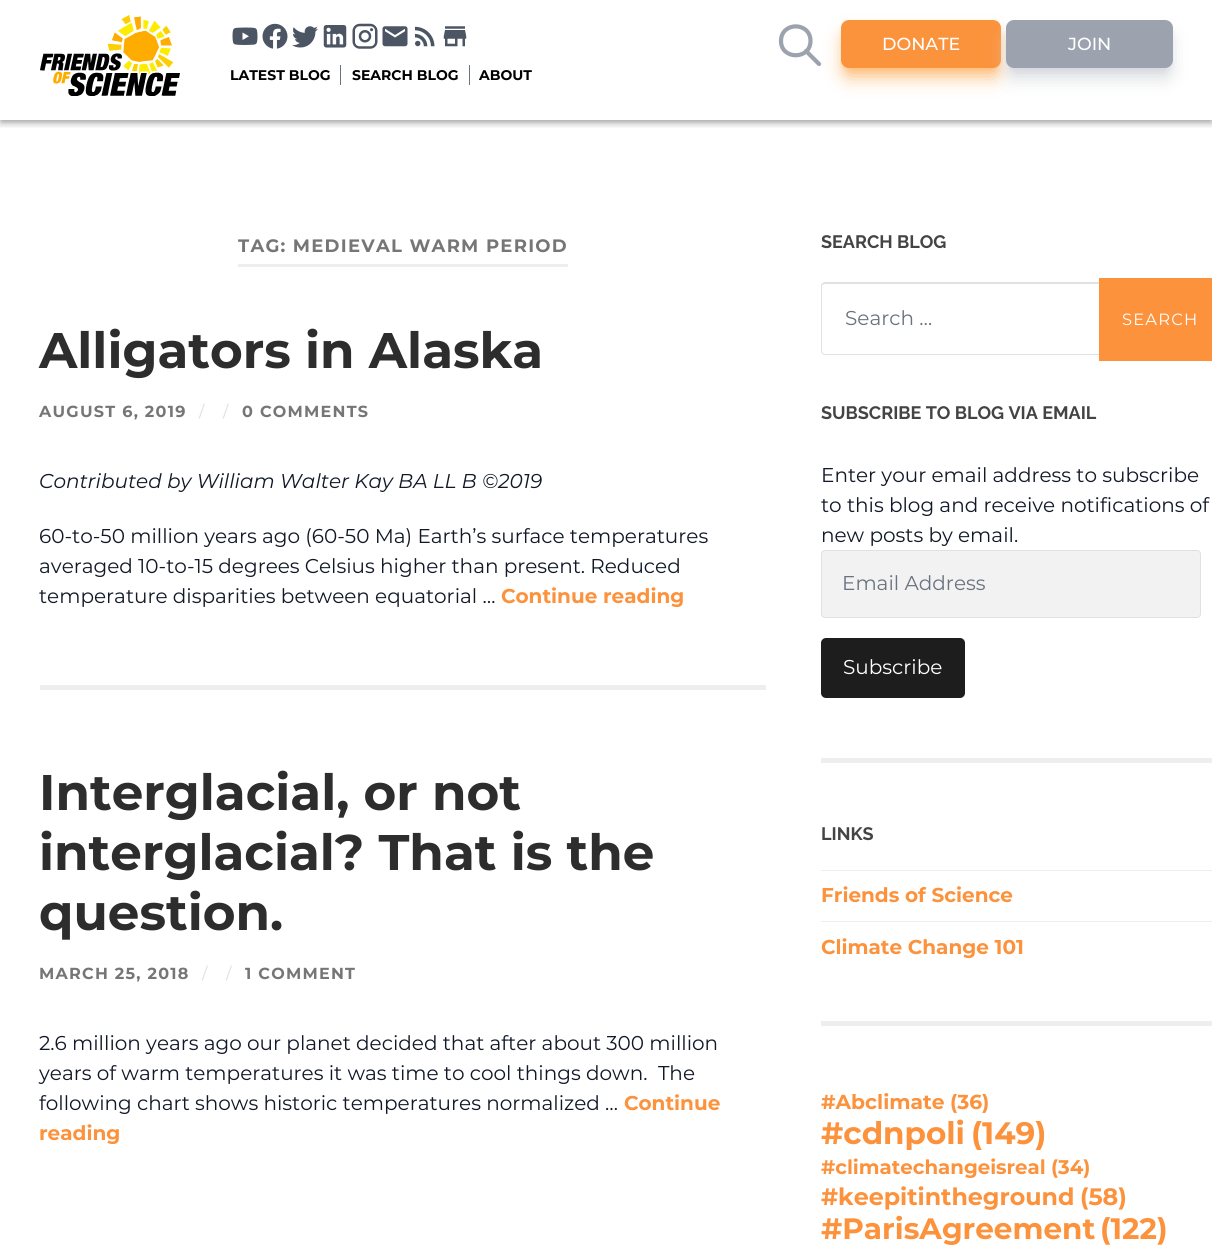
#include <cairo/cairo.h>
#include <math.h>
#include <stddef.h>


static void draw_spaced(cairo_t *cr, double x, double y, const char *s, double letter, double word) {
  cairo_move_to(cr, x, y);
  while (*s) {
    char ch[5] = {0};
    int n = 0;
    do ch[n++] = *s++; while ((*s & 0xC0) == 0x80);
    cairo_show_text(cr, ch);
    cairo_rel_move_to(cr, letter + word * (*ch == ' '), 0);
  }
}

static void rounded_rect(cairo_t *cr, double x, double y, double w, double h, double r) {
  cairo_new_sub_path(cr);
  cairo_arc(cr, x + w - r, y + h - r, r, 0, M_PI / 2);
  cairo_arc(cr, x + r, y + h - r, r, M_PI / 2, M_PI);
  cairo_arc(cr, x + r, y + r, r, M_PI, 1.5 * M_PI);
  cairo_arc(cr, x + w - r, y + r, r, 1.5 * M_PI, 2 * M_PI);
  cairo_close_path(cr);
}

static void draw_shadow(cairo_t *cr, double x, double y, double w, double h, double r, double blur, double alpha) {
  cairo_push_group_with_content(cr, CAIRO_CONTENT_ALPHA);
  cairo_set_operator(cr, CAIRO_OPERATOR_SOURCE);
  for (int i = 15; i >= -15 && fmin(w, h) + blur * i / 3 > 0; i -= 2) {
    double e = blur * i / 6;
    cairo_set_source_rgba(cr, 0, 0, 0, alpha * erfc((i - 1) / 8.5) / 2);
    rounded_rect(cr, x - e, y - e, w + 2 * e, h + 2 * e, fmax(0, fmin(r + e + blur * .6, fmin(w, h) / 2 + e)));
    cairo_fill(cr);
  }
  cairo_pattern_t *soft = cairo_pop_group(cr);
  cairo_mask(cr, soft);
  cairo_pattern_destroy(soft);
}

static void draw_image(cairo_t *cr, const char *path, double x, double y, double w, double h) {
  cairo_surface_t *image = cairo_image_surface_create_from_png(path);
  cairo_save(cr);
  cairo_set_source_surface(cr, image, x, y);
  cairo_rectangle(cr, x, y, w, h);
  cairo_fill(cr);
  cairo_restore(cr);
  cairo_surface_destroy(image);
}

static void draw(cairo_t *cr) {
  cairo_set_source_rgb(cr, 1, 1, 1);
  cairo_paint(cr);
  cairo_save(cr);
  cairo_rectangle(cr, 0, 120, 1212, 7);
  cairo_clip(cr);
  cairo_set_source_rgb(cr, 0, 0, 0);
  draw_shadow(cr, 0, 1, 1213, 120, 0, 6, 0.12);
  cairo_restore(cr);
  cairo_save(cr);
  cairo_rectangle(cr, 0, 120, 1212, 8);
  cairo_clip(cr);
  cairo_set_source_rgb(cr, 0, 0, 0);
  draw_shadow(cr, 0, 5, 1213, 120, 0, 3, 0.14);
  cairo_restore(cr);
  cairo_save(cr);
  cairo_rectangle(cr, 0, 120, 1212, 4);
  cairo_clip(cr);
  cairo_set_source_rgb(cr, 0, 0, 0);
  draw_shadow(cr, 1, 4, 1210, 117, 0, 2.5, 0.2);
  cairo_restore(cr);
  draw_image(cr, "images/1.png", 40, 15, 140, 81);
  draw_image(cr, "images/2.png", 232, 27, 26, 18);
  draw_image(cr, "images/3.png", 262, 23, 26, 26);
  draw_image(cr, "images/4.png", 292, 26, 26, 22);
  draw_image(cr, "images/5.png", 323, 25, 24, 23);
  draw_image(cr, "images/6.png", 352, 23, 26, 26);
  draw_image(cr, "images/7.png", 382, 26, 26, 21);
  draw_image(cr, "images/8.png", 415, 26, 20, 21);
  draw_image(cr, "images/9.png", 443, 26, 24, 21);
  cairo_set_source_rgb(cr, 253 / 255.0, 186 / 255.0, 116 / 255.0);
  draw_shadow(cr, 845, 36, 153, 40, 4, 9.5, 1);
  cairo_new_path(cr);
  cairo_move_to(cr, 819, 64);
  cairo_line_to(cr, 806, 51);
  cairo_move_to(cr, 810.5, 41);
  cairo_curve_to(cr, 810.5, 60, 781, 60, 781, 41);
  cairo_curve_to(cr, 781, 21.5, 810.5, 21.5, 810.5, 41);
  cairo_close_path(cr);
  cairo_set_source_rgb(cr, 156 / 255.0, 163 / 255.0, 175 / 255.0);
  cairo_set_line_width(cr, 4.2);
  cairo_set_line_cap(cr, CAIRO_LINE_CAP_ROUND);
  cairo_set_line_join(cr, CAIRO_LINE_JOIN_ROUND);
  cairo_stroke(cr);
  cairo_set_source_rgb(cr, 253 / 255.0, 186 / 255.0, 116 / 255.0);
  draw_shadow(cr, 846, 30, 150, 38, 2.5, 4, 1);
  cairo_set_source_rgb(cr, 251 / 255.0, 146 / 255.0, 60 / 255.0);
  rounded_rect(cr, 841, 20, 160, 48, 8);
  cairo_fill(cr);
  cairo_set_source_rgb(cr, 209 / 255.0, 213 / 255.0, 219 / 255.0);
  draw_shadow(cr, 1011, 30, 157, 38, 2.5, 4, 1);
  draw_shadow(cr, 1010, 36, 159, 40, 4, 9.5, 1);
  cairo_set_source_rgb(cr, 156 / 255.0, 163 / 255.0, 175 / 255.0);
  rounded_rect(cr, 1006, 20, 167, 48, 8);
  cairo_fill(cr);
  cairo_set_source_rgb(cr, 107 / 255.0, 114 / 255.0, 128 / 255.0);
  cairo_rectangle(cr, 340, 65, 1, 20);
  cairo_fill(cr);
  cairo_rectangle(cr, 469, 65, 1, 20);
  cairo_fill(cr);
  cairo_set_source_rgb(cr, 238 / 255.0, 238 / 255.0, 238 / 255.0);
  cairo_rectangle(cr, 238, 264, 330, 3);
  cairo_fill(cr);
  cairo_rectangle(cr, 40, 685, 726, 5);
  cairo_fill(cr);
  cairo_set_source_rgb(cr, 225 / 255.0, 225 / 255.0, 227 / 255.0);
  cairo_set_fill_rule(cr, CAIRO_FILL_RULE_EVEN_ODD);
  cairo_new_path(cr);
  cairo_move_to(cr, 825, 282);
  cairo_line_to(cr, 1099, 282);
  cairo_line_to(cr, 1099, 355);
  cairo_line_to(cr, 825, 355);
  cairo_curve_to(cr, 823, 355, 821, 353, 821, 351);
  cairo_line_to(cr, 821, 286);
  cairo_curve_to(cr, 821, 284, 823, 282, 825, 282);
  cairo_close_path(cr);
  cairo_move_to(cr, 825, 284);
  cairo_line_to(cr, 1099, 284);
  cairo_line_to(cr, 1099, 354);
  cairo_line_to(cr, 825, 354);
  cairo_curve_to(cr, 824, 354, 822, 353, 822, 351);
  cairo_line_to(cr, 822, 286);
  cairo_curve_to(cr, 822, 285, 824, 284, 825, 284);
  cairo_close_path(cr);
  cairo_fill(cr);
  cairo_set_source_rgb(cr, 252 / 255.0, 146 / 255.0, 60 / 255.0);
  cairo_rectangle(cr, 1099, 278, 113, 83);
  cairo_fill(cr);
  cairo_set_source_rgb(cr, 238 / 255.0, 238 / 255.0, 238 / 255.0);
  cairo_rectangle(cr, 821, 758, 391, 5);
  cairo_fill(cr);
  cairo_set_source_rgb(cr, 242 / 255.0, 242 / 255.0, 242 / 255.0);
  rounded_rect(cr, 821.5, 550.5, 379, 67, 3.5);
  cairo_fill_preserve(cr);
  cairo_set_source_rgb(cr, 225 / 255.0, 225 / 255.0, 227 / 255.0);
  cairo_set_line_width(cr, 1);
  cairo_set_line_cap(cr, CAIRO_LINE_CAP_BUTT);
  cairo_set_line_join(cr, CAIRO_LINE_JOIN_MITER);
  cairo_stroke(cr);
  cairo_set_source_rgb(cr, 29 / 255.0, 29 / 255.0, 29 / 255.0);
  rounded_rect(cr, 821, 638, 144, 60, 5);
  cairo_fill(cr);
  cairo_set_source_rgb(cr, 238 / 255.0, 238 / 255.0, 238 / 255.0);
  cairo_rectangle(cr, 821, 1021, 391, 5);
  cairo_fill(cr);
  cairo_rectangle(cr, 821, 870, 391, 1);
  cairo_fill(cr);
  cairo_rectangle(cr, 821, 921, 391, 1);
  cairo_fill(cr);
  cairo_select_font_face(cr, "Montserrat Medium", CAIRO_FONT_SLANT_NORMAL, CAIRO_FONT_WEIGHT_NORMAL);
  cairo_set_font_size(cr, 17.5);
  cairo_set_source_rgb(cr, 1, 1, 1);
  cairo_move_to(cr, 882, 50);
  cairo_show_text(cr, "DONATE");
  cairo_move_to(cr, 1068, 50);
  cairo_show_text(cr, "JOIN");
  cairo_select_font_face(cr, "Montserrat", CAIRO_FONT_SLANT_NORMAL, CAIRO_FONT_WEIGHT_BOLD);
  cairo_set_font_size(cr, 14);
  cairo_set_source_rgb(cr, 0, 0, 0);
  cairo_move_to(cr, 230, 80);
  cairo_show_text(cr, "LATEST BLOG");
  cairo_move_to(cr, 352, 80);
  cairo_show_text(cr, "SEARCH BLOG");
  cairo_move_to(cr, 479, 80);
  cairo_show_text(cr, "ABOUT");
  cairo_set_font_size(cr, 18);
  cairo_set_source_rgb(cr, 118 / 255.0, 118 / 255.0, 118 / 255.0);
  draw_spaced(cr, 238, 252, "TAG: MEDIEVAL WARM PERIOD", 1.25, 0);
  cairo_set_font_size(cr, 50);
  cairo_set_source_rgb(cr, 45 / 255.0, 45 / 255.0, 45 / 255.0);
  cairo_move_to(cr, 39, 368);
  cairo_show_text(cr, "Alligators in Alaska");
  cairo_set_font_size(cr, 16);
  cairo_set_source_rgb(cr, 118 / 255.0, 118 / 255.0, 118 / 255.0);
  draw_spaced(cr, 39, 417, "AUGUST 6, 2019", 1.25, 0);
  cairo_select_font_face(cr, "Montserrat", CAIRO_FONT_SLANT_NORMAL, CAIRO_FONT_WEIGHT_NORMAL);
  cairo_set_source_rgb(cr, 221 / 255.0, 221 / 255.0, 221 / 255.0);
  draw_spaced(cr, 199, 417, "/", 1.25, 0);
  draw_spaced(cr, 223, 417, "/", 1.25, 0);
  cairo_select_font_face(cr, "Montserrat", CAIRO_FONT_SLANT_NORMAL, CAIRO_FONT_WEIGHT_BOLD);
  cairo_set_source_rgb(cr, 118 / 255.0, 118 / 255.0, 118 / 255.0);
  draw_spaced(cr, 242, 417, "0 COMMENTS", 1.25, 0);
  cairo_select_font_face(cr, "Montserrat", CAIRO_FONT_SLANT_ITALIC, CAIRO_FONT_WEIGHT_NORMAL);
  cairo_set_font_size(cr, 20);
  cairo_set_source_rgb(cr, 17 / 255.0, 24 / 255.0, 39 / 255.0);
  cairo_move_to(cr, 39, 488);
  cairo_show_text(cr, "Contributed by William Walter Kay BA LL B ©2019");
  cairo_select_font_face(cr, "Montserrat", CAIRO_FONT_SLANT_NORMAL, CAIRO_FONT_WEIGHT_NORMAL);
  cairo_move_to(cr, 39, 543);
  cairo_show_text(cr, "60-to-50 million years ago (60-50 Ma) Earth’s surface temperatures");
  cairo_move_to(cr, 39, 573);
  cairo_show_text(cr, "averaged 10-to-15 degrees Celsius higher than present. Reduced");
  cairo_move_to(cr, 39, 603);
  cairo_show_text(cr, "temperature disparities between equatorial …");
  cairo_select_font_face(cr, "Montserrat", CAIRO_FONT_SLANT_NORMAL, CAIRO_FONT_WEIGHT_BOLD);
  cairo_set_source_rgb(cr, 252 / 255.0, 146 / 255.0, 60 / 255.0);
  cairo_move_to(cr, 501, 603);
  cairo_show_text(cr, "Continue reading");
  cairo_set_font_size(cr, 50);
  cairo_set_source_rgb(cr, 45 / 255.0, 45 / 255.0, 45 / 255.0);
  cairo_move_to(cr, 39, 810);
  cairo_show_text(cr, "Interglacial, or not");
  cairo_move_to(cr, 39, 870);
  cairo_show_text(cr, "interglacial? That is the");
  cairo_move_to(cr, 39, 930);
  cairo_show_text(cr, "question.");
  cairo_set_font_size(cr, 16);
  cairo_set_source_rgb(cr, 118 / 255.0, 118 / 255.0, 118 / 255.0);
  draw_spaced(cr, 39, 979, "MARCH 25, 2018", 1.25, 0);
  cairo_select_font_face(cr, "Montserrat", CAIRO_FONT_SLANT_NORMAL, CAIRO_FONT_WEIGHT_NORMAL);
  cairo_set_source_rgb(cr, 221 / 255.0, 221 / 255.0, 221 / 255.0);
  draw_spaced(cr, 202, 979, "/", 1.25, 0);
  draw_spaced(cr, 226, 979, "/", 1.25, 0);
  cairo_select_font_face(cr, "Montserrat", CAIRO_FONT_SLANT_NORMAL, CAIRO_FONT_WEIGHT_BOLD);
  cairo_set_source_rgb(cr, 118 / 255.0, 118 / 255.0, 118 / 255.0);
  draw_spaced(cr, 245, 979, "1 COMMENT", 1.25, 0);
  cairo_select_font_face(cr, "Montserrat", CAIRO_FONT_SLANT_NORMAL, CAIRO_FONT_WEIGHT_NORMAL);
  cairo_set_font_size(cr, 20);
  cairo_set_source_rgb(cr, 17 / 255.0, 24 / 255.0, 39 / 255.0);
  cairo_move_to(cr, 39, 1050);
  cairo_show_text(cr, "2.6 million years ago our planet decided that after about 300 million");
  cairo_move_to(cr, 39, 1080);
  cairo_show_text(cr, "years of warm temperatures it was time to cool things down.  The");
  cairo_move_to(cr, 39, 1110);
  cairo_show_text(cr, "following chart shows historic temperatures normalized …");
  cairo_select_font_face(cr, "Montserrat", CAIRO_FONT_SLANT_NORMAL, CAIRO_FONT_WEIGHT_BOLD);
  cairo_set_source_rgb(cr, 252 / 255.0, 146 / 255.0, 60 / 255.0);
  cairo_move_to(cr, 624, 1110);
  cairo_show_text(cr, "Continue");
  cairo_move_to(cr, 39, 1140);
  cairo_show_text(cr, "reading");
  cairo_select_font_face(cr, "Raleway", CAIRO_FONT_SLANT_NORMAL, CAIRO_FONT_WEIGHT_BOLD);
  cairo_set_font_size(cr, 18);
  cairo_set_source_rgb(cr, 68 / 255.0, 68 / 255.0, 68 / 255.0);
  cairo_move_to(cr, 821, 248);
  cairo_show_text(cr, "SEARCH BLOG");
  cairo_select_font_face(cr, "Montserrat", CAIRO_FONT_SLANT_NORMAL, CAIRO_FONT_WEIGHT_NORMAL);
  cairo_set_font_size(cr, 20);
  cairo_set_source_rgb(cr, 107 / 255.0, 114 / 255.0, 128 / 255.0);
  cairo_move_to(cr, 845, 325);
  cairo_show_text(cr, "Search …");
  cairo_set_font_size(cr, 16.25);
  cairo_set_source_rgb(cr, 1, 1, 1);
  draw_spaced(cr, 1122, 325, "SEARCH", 1.25, 0);
  cairo_select_font_face(cr, "Raleway", CAIRO_FONT_SLANT_NORMAL, CAIRO_FONT_WEIGHT_BOLD);
  cairo_set_font_size(cr, 18);
  cairo_set_source_rgb(cr, 68 / 255.0, 68 / 255.0, 68 / 255.0);
  cairo_move_to(cr, 821, 419);
  cairo_show_text(cr, "SUBSCRIBE TO BLOG VIA EMAIL");
  cairo_select_font_face(cr, "Montserrat", CAIRO_FONT_SLANT_NORMAL, CAIRO_FONT_WEIGHT_NORMAL);
  cairo_set_font_size(cr, 20);
  cairo_set_source_rgb(cr, 17 / 255.0, 24 / 255.0, 39 / 255.0);
  cairo_move_to(cr, 821, 482);
  cairo_show_text(cr, "Enter your email address to subscribe");
  cairo_move_to(cr, 821, 512);
  cairo_show_text(cr, "to this blog and receive notifications of");
  cairo_move_to(cr, 821, 542);
  cairo_show_text(cr, "new posts by email.");
  cairo_set_source_rgb(cr, 107 / 255.0, 114 / 255.0, 128 / 255.0);
  cairo_move_to(cr, 842, 590);
  cairo_show_text(cr, "Email Address");
  cairo_set_source_rgb(cr, 1, 1, 1);
  cairo_move_to(cr, 843, 674);
  cairo_show_text(cr, "Subscribe");
  cairo_select_font_face(cr, "Raleway", CAIRO_FONT_SLANT_NORMAL, CAIRO_FONT_WEIGHT_BOLD);
  cairo_set_font_size(cr, 18);
  cairo_set_source_rgb(cr, 68 / 255.0, 68 / 255.0, 68 / 255.0);
  cairo_move_to(cr, 821, 840);
  cairo_show_text(cr, "LINKS");
  cairo_select_font_face(cr, "Montserrat", CAIRO_FONT_SLANT_NORMAL, CAIRO_FONT_WEIGHT_BOLD);
  cairo_set_font_size(cr, 20);
  cairo_set_source_rgb(cr, 252 / 255.0, 146 / 255.0, 60 / 255.0);
  cairo_move_to(cr, 821, 902);
  cairo_show_text(cr, "Friends of Science");
  cairo_move_to(cr, 821, 954);
  cairo_show_text(cr, "Climate Change 101");
  cairo_set_font_size(cr, 20.25);
  cairo_move_to(cr, 821, 1109);
  cairo_show_text(cr, "#Abclimate");
  cairo_move_to(cr, 950, 1109);
  cairo_show_text(cr, "(36)");
  cairo_set_font_size(cr, 31);
  cairo_move_to(cr, 821, 1144);
  cairo_show_text(cr, "#cdnpoli");
  cairo_move_to(cr, 971, 1144);
  cairo_show_text(cr, "(149)");
  cairo_set_font_size(cr, 19.75);
  cairo_move_to(cr, 821, 1174);
  cairo_show_text(cr, "#climatechangeisreal");
  cairo_move_to(cr, 1051, 1174);
  cairo_show_text(cr, "(34)");
  cairo_set_font_size(cr, 23.75);
  cairo_move_to(cr, 821, 1205);
  cairo_show_text(cr, "#keepitintheground");
  cairo_move_to(cr, 1080, 1205);
  cairo_show_text(cr, "(58)");
  cairo_set_font_size(cr, 29.5);
  cairo_move_to(cr, 821, 1239);
  cairo_show_text(cr, "#ParisAgreement");
  cairo_move_to(cr, 1100, 1239);
  cairo_show_text(cr, "(122)");
}

int main(void) {
  cairo_surface_t *surface = cairo_image_surface_create(CAIRO_FORMAT_RGB24, 1212, 1260);
  cairo_t *cr = cairo_create(surface);
  cairo_font_options_t *options = cairo_font_options_create();
  cairo_font_options_set_hint_metrics(options, CAIRO_HINT_METRICS_OFF);
  cairo_font_options_set_hint_style(options, CAIRO_HINT_STYLE_NONE);
  cairo_set_font_options(cr, options);
  cairo_set_miter_limit(cr, 4);
  draw(cr);
  cairo_surface_write_to_png(surface, "out.png");
  cairo_font_options_destroy(options);
  cairo_destroy(cr);
  cairo_surface_destroy(surface);
  return 0;
}
